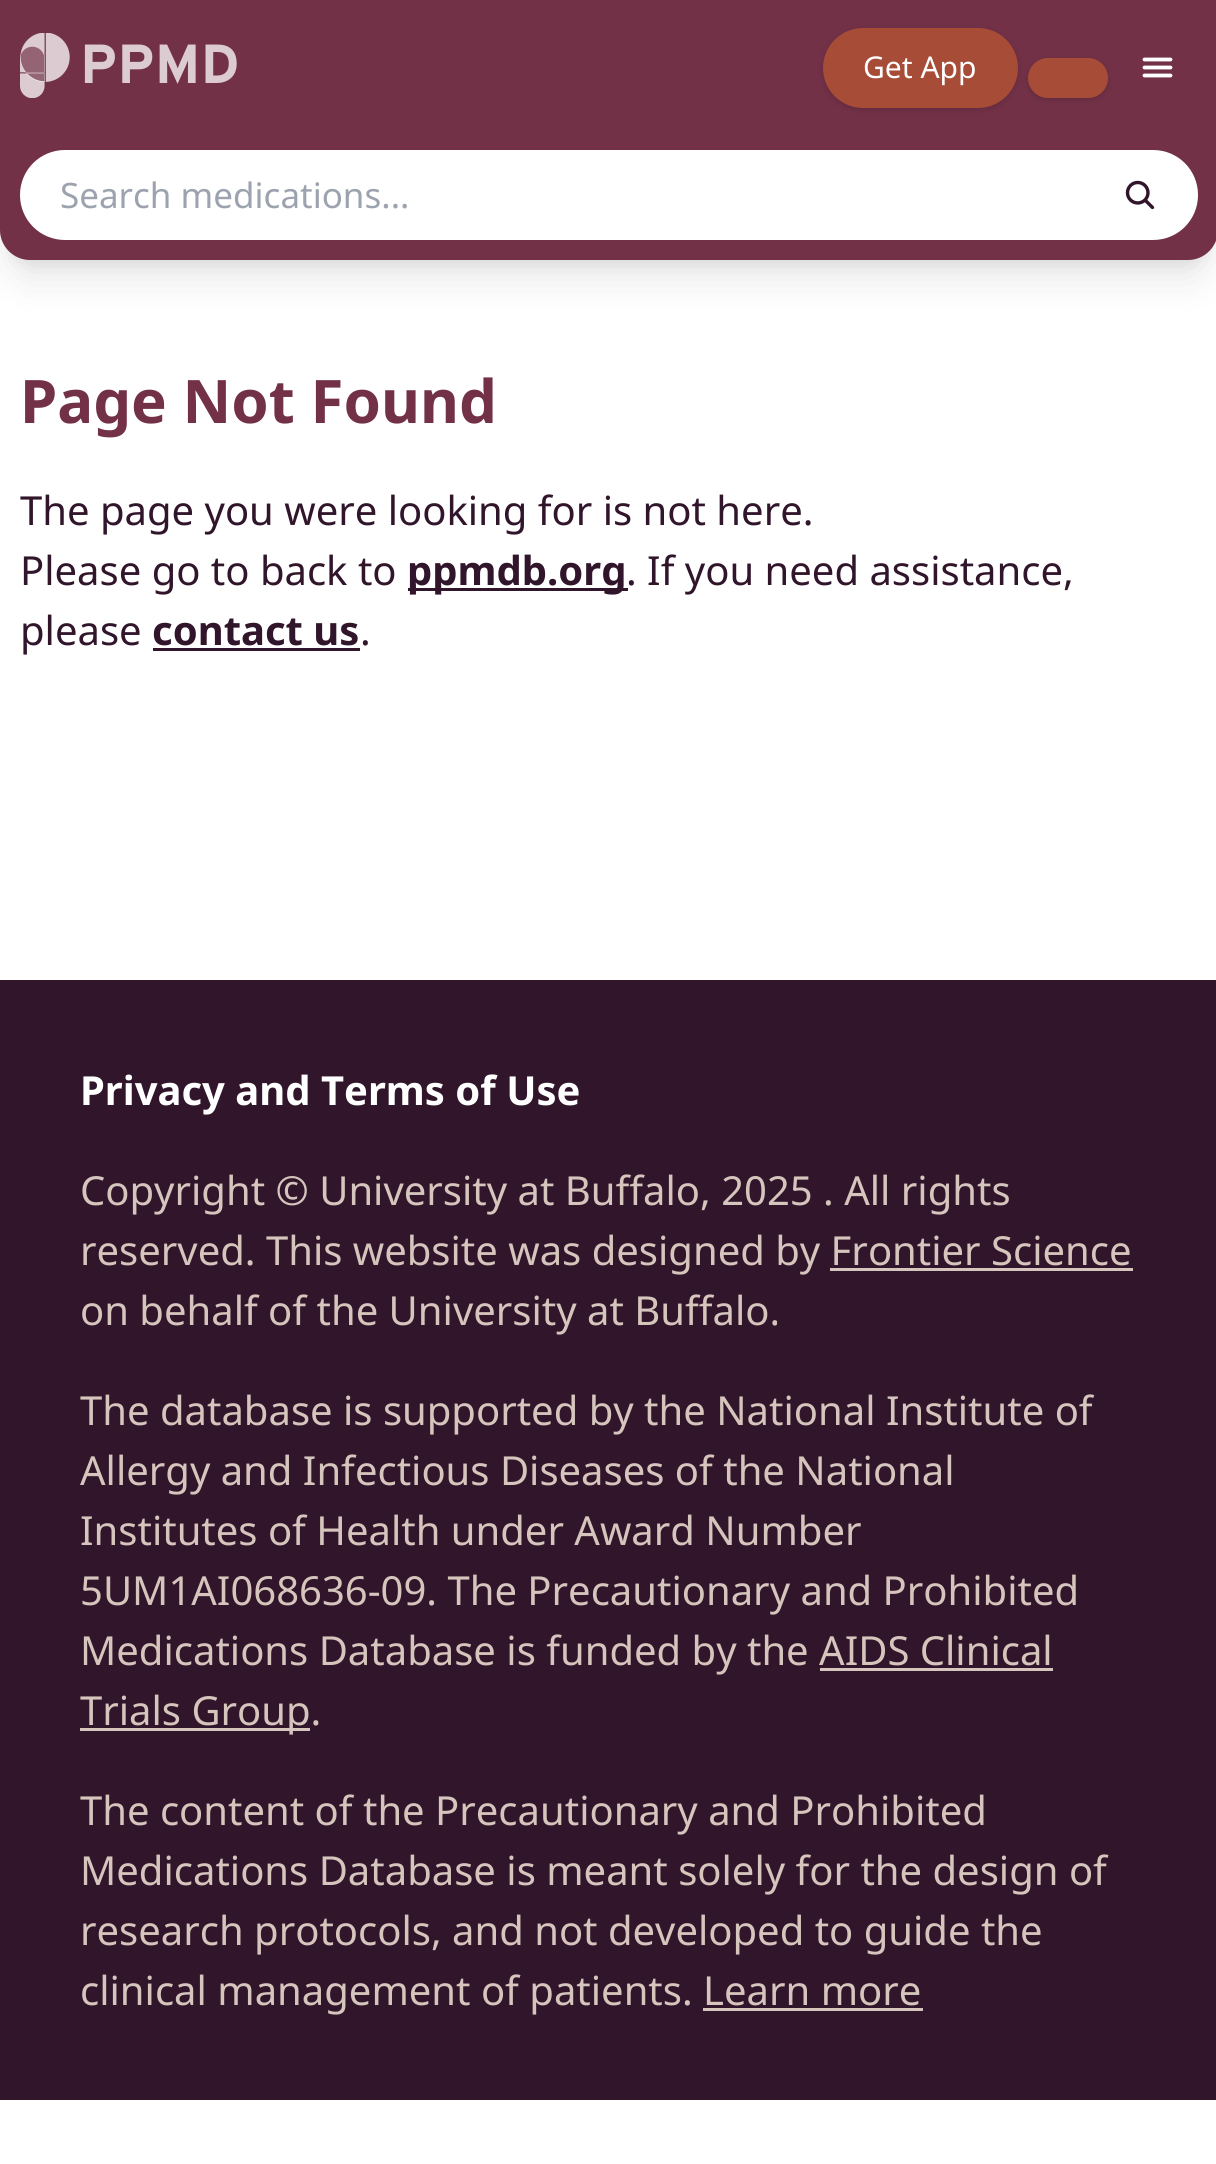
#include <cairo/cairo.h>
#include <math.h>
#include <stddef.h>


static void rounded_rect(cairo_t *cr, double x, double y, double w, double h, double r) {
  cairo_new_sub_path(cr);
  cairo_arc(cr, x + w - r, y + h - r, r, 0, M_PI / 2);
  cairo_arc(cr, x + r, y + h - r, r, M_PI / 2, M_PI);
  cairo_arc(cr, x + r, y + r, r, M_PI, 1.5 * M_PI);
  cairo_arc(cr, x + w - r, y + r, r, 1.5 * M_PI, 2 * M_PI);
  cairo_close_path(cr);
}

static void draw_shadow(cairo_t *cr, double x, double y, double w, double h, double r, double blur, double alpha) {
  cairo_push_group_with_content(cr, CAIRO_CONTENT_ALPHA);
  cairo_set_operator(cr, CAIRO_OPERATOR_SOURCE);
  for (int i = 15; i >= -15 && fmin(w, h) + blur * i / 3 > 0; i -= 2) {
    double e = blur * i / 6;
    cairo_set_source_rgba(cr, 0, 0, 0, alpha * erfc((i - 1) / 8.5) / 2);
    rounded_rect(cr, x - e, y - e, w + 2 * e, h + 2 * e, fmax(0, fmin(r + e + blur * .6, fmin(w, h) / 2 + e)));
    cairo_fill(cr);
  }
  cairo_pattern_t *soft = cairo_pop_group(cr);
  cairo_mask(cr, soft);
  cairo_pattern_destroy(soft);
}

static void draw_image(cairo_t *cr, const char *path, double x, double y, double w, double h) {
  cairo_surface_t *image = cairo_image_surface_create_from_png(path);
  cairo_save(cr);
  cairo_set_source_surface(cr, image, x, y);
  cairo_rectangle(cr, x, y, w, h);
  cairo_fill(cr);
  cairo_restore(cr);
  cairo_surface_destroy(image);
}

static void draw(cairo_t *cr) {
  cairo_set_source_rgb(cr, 1, 1, 1);
  cairo_paint(cr);
  cairo_set_source_rgb(cr, 0, 0, 0);
  draw_shadow(cr, 10, 20, 1198, 240, 20, 7.5, 0.1);
  draw_shadow(cr, 8, 33, 1202, 245, 23, 19, 0.1);
  cairo_set_source_rgb(cr, 114 / 255.0, 49 / 255.0, 71 / 255.0);
  cairo_new_path(cr);
  cairo_move_to(cr, 0, 0);
  cairo_line_to(cr, 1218, 0);
  cairo_line_to(cr, 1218, 230);
  cairo_curve_to(cr, 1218, 246.5, 1204.5, 260, 1188, 260);
  cairo_line_to(cr, 30, 260);
  cairo_curve_to(cr, 13.5, 260, 0, 246.5, 0, 230);
  cairo_close_path(cr);
  cairo_fill(cr);
  draw_image(cr, "images/1.png", 20, 33, 217, 65);
  cairo_set_source_rgb(cr, 0, 0, 0);
  draw_shadow(cr, 825, 33, 190, 75, 37.5, 2.5, 0.1);
  draw_shadow(cr, 823, 30, 195, 80, 40, 4, 0.1);
  cairo_set_source_rgb(cr, 166 / 255.0, 76 / 255.0, 55 / 255.0);
  rounded_rect(cr, 823, 28, 195, 80, 40);
  cairo_fill(cr);
  cairo_set_source_rgb(cr, 0, 0, 0);
  draw_shadow(cr, 1030, 63, 75, 35, 17.5, 2.5, 0.1);
  draw_shadow(cr, 1028, 60, 80, 40, 20, 4, 0.1);
  cairo_set_source_rgb(cr, 166 / 255.0, 76 / 255.0, 55 / 255.0);
  rounded_rect(cr, 1028, 58, 80, 40, 20);
  cairo_fill(cr);
  cairo_new_path(cr);
  cairo_move_to(cr, 1144.5, 59.5);
  cairo_line_to(cr, 1170.5, 59.5);
  cairo_move_to(cr, 1144.5, 67.5);
  cairo_line_to(cr, 1170.5, 67.5);
  cairo_move_to(cr, 1144.5, 75.5);
  cairo_line_to(cr, 1170.5, 75.5);
  cairo_set_source_rgb(cr, 1, 1, 1);
  cairo_set_line_width(cr, 3.8);
  cairo_set_line_cap(cr, CAIRO_LINE_CAP_ROUND);
  cairo_stroke(cr);
  cairo_new_path(cr);
  cairo_move_to(cr, 65, 150);
  cairo_line_to(cr, 1083, 150);
  cairo_line_to(cr, 1083, 240);
  cairo_line_to(cr, 65, 240);
  cairo_curve_to(cr, 40, 240, 20, 220, 20, 195);
  cairo_curve_to(cr, 20, 170, 40, 150, 65, 150);
  cairo_close_path(cr);
  cairo_fill(cr);
  cairo_new_path(cr);
  cairo_move_to(cr, 1083, 150);
  cairo_line_to(cr, 1153, 150);
  cairo_curve_to(cr, 1178, 150, 1198, 170, 1198, 195);
  cairo_curve_to(cr, 1198, 220, 1178, 240, 1153, 240);
  cairo_line_to(cr, 1083, 240);
  cairo_close_path(cr);
  cairo_fill(cr);
  draw_image(cr, "images/2.png", 1125, 180, 30, 30);
  cairo_set_source_rgb(cr, 49 / 255.0, 21 / 255.0, 43 / 255.0);
  cairo_rectangle(cr, 408, 588, 220, 3);
  cairo_fill(cr);
  cairo_rectangle(cr, 153, 648, 207, 3);
  cairo_fill(cr);
  cairo_rectangle(cr, 0, 980, 1216, 1120);
  cairo_fill(cr);
  cairo_set_source_rgb(cr, 213 / 255.0, 197 / 255.0, 188 / 255.0);
  cairo_rectangle(cr, 830, 1268, 303, 3);
  cairo_fill(cr);
  cairo_rectangle(cr, 820, 1668, 233, 3);
  cairo_fill(cr);
  cairo_rectangle(cr, 80, 1728, 230, 3);
  cairo_fill(cr);
  cairo_rectangle(cr, 703, 2008, 220, 3);
  cairo_fill(cr);
  cairo_select_font_face(cr, "Noto Sans", CAIRO_FONT_SLANT_NORMAL, CAIRO_FONT_WEIGHT_NORMAL);
  cairo_set_font_size(cr, 30);
  cairo_set_source_rgb(cr, 1, 1, 1);
  cairo_move_to(cr, 863, 78);
  cairo_show_text(cr, "Get App");
  cairo_set_font_size(cr, 35);
  cairo_set_source_rgb(cr, 156 / 255.0, 163 / 255.0, 175 / 255.0);
  cairo_move_to(cr, 60, 208);
  cairo_show_text(cr, "Search medications...");
  cairo_select_font_face(cr, "Noto Sans", CAIRO_FONT_SLANT_NORMAL, CAIRO_FONT_WEIGHT_BOLD);
  cairo_set_font_size(cr, 60);
  cairo_set_source_rgb(cr, 114 / 255.0, 49 / 255.0, 71 / 255.0);
  cairo_move_to(cr, 20, 423);
  cairo_show_text(cr, "Page Not Found");
  cairo_select_font_face(cr, "Noto Sans", CAIRO_FONT_SLANT_NORMAL, CAIRO_FONT_WEIGHT_NORMAL);
  cairo_set_font_size(cr, 40);
  cairo_set_source_rgb(cr, 49 / 255.0, 21 / 255.0, 43 / 255.0);
  cairo_move_to(cr, 20, 525);
  cairo_show_text(cr, "The page you were looking for is not here.");
  cairo_move_to(cr, 20, 585);
  cairo_show_text(cr, "Please go to back to");
  cairo_select_font_face(cr, "Noto Sans", CAIRO_FONT_SLANT_NORMAL, CAIRO_FONT_WEIGHT_BOLD);
  cairo_move_to(cr, 407, 585);
  cairo_show_text(cr, "ppmdb.org");
  cairo_select_font_face(cr, "Noto Sans", CAIRO_FONT_SLANT_NORMAL, CAIRO_FONT_WEIGHT_NORMAL);
  cairo_move_to(cr, 626, 585);
  cairo_show_text(cr, ". If you need assistance,");
  cairo_move_to(cr, 20, 645);
  cairo_show_text(cr, "please");
  cairo_select_font_face(cr, "Noto Sans", CAIRO_FONT_SLANT_NORMAL, CAIRO_FONT_WEIGHT_BOLD);
  cairo_move_to(cr, 152, 645);
  cairo_show_text(cr, "contact us");
  cairo_select_font_face(cr, "Noto Sans", CAIRO_FONT_SLANT_NORMAL, CAIRO_FONT_WEIGHT_NORMAL);
  cairo_move_to(cr, 360, 645);
  cairo_show_text(cr, ".");
  cairo_select_font_face(cr, "Noto Sans", CAIRO_FONT_SLANT_NORMAL, CAIRO_FONT_WEIGHT_BOLD);
  cairo_set_source_rgb(cr, 1, 1, 1);
  cairo_move_to(cr, 80, 1105);
  cairo_show_text(cr, "Privacy and Terms of Use");
  cairo_select_font_face(cr, "Noto Sans", CAIRO_FONT_SLANT_NORMAL, CAIRO_FONT_WEIGHT_NORMAL);
  cairo_set_source_rgb(cr, 213 / 255.0, 197 / 255.0, 188 / 255.0);
  cairo_move_to(cr, 80, 1205);
  cairo_show_text(cr, "Copyright © University at Buffalo, 2025 . All rights");
  cairo_move_to(cr, 80, 1265);
  cairo_show_text(cr, "reserved. This website was designed by Frontier Science");
  cairo_move_to(cr, 80, 1325);
  cairo_show_text(cr, "on behalf of the University at Buffalo.");
  cairo_move_to(cr, 80, 1425);
  cairo_show_text(cr, "The database is supported by the National Institute of");
  cairo_move_to(cr, 80, 1485);
  cairo_show_text(cr, "Allergy and Infectious Diseases of the National");
  cairo_move_to(cr, 80, 1545);
  cairo_show_text(cr, "Institutes of Health under Award Number");
  cairo_move_to(cr, 80, 1605);
  cairo_show_text(cr, "5UM1AI068636-09. The Precautionary and Prohibited");
  cairo_move_to(cr, 80, 1665);
  cairo_show_text(cr, "Medications Database is funded by the AIDS Clinical");
  cairo_move_to(cr, 80, 1725);
  cairo_show_text(cr, "Trials Group.");
  cairo_move_to(cr, 80, 1825);
  cairo_show_text(cr, "The content of the Precautionary and Prohibited");
  cairo_move_to(cr, 80, 1885);
  cairo_show_text(cr, "Medications Database is meant solely for the design of");
  cairo_move_to(cr, 80, 1945);
  cairo_show_text(cr, "research protocols, and not developed to guide the");
  cairo_move_to(cr, 80, 2005);
  cairo_show_text(cr, "clinical management of patients. Learn more");
}

int main(void) {
  cairo_surface_t *surface = cairo_image_surface_create(CAIRO_FORMAT_RGB24, 1216, 2164);
  cairo_t *cr = cairo_create(surface);
  cairo_font_options_t *options = cairo_font_options_create();
  cairo_font_options_set_hint_metrics(options, CAIRO_HINT_METRICS_OFF);
  cairo_font_options_set_hint_style(options, CAIRO_HINT_STYLE_NONE);
  cairo_set_font_options(cr, options);
  cairo_set_miter_limit(cr, 4);
  draw(cr);
  cairo_surface_write_to_png(surface, "out.png");
  cairo_font_options_destroy(options);
  cairo_destroy(cr);
  cairo_surface_destroy(surface);
  return 0;
}
